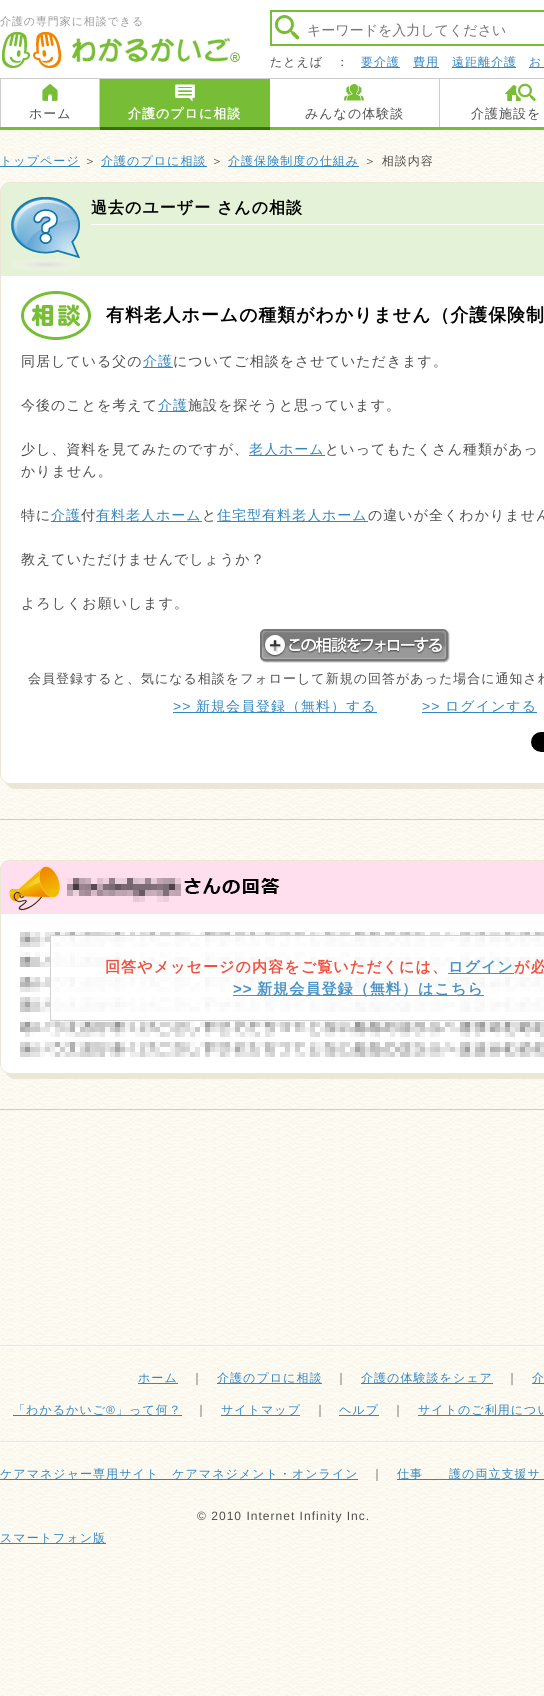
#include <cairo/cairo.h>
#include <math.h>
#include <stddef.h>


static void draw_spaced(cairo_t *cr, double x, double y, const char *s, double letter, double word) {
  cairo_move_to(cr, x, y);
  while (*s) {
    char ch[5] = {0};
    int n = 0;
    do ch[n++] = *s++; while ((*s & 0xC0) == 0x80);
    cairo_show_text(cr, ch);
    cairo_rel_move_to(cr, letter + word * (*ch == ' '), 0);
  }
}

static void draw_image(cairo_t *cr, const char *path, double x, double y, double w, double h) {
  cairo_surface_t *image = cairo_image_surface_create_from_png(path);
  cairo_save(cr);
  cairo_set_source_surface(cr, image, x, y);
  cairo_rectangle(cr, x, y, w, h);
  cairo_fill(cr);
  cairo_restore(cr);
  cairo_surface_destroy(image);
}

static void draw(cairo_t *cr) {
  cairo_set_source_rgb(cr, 1, 1, 1);
  cairo_paint(cr);
  draw_image(cr, "images/1.png", 0, 130, 544, 1566);
  draw_image(cr, "images/2.png", 2, 32, 238, 36);
  draw_image(cr, "images/3.png", 275, 15, 25, 25);
  cairo_rectangle(cr, 271, 11, 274, 34);
  cairo_set_source_rgb(cr, 120 / 255.0, 189 / 255.0, 54 / 255.0);
  cairo_stroke(cr);
  cairo_set_source_rgb(cr, 52 / 255.0, 134 / 255.0, 191 / 255.0);
  cairo_rectangle(cr, 361, 67, 39, 1);
  cairo_fill(cr);
  cairo_rectangle(cr, 413, 67, 26, 1);
  cairo_fill(cr);
  cairo_rectangle(cr, 452, 67, 64, 1);
  cairo_fill(cr);
  cairo_rectangle(cr, 529, 67, 15, 1);
  cairo_fill(cr);
  draw_image(cr, "images/4.png", 0, 78, 544, 52);
  draw_image(cr, "images/5.png", 0, 79, 100, 48);
  draw_image(cr, "images/6.png", 100, 79, 170, 51);
  draw_image(cr, "images/7.png", 270, 79, 170, 48);
  draw_image(cr, "images/8.png", 440, 79, 104, 48);
  cairo_rectangle(cr, 0, 166, 80, 1);
  cairo_fill(cr);
  cairo_rectangle(cr, 101, 166, 106, 1);
  cairo_fill(cr);
  cairo_rectangle(cr, 228, 166, 131, 1);
  cairo_fill(cr);
  draw_image(cr, "images/9.png", 0, 182, 544, 15);
  cairo_set_source_rgb(cr, 228 / 255.0, 242 / 255.0, 215 / 255.0);
  cairo_rectangle(cr, 1, 197, 543, 79);
  cairo_fill(cr);
  cairo_set_source_rgb(cr, 236 / 255.0, 230 / 255.0, 215 / 255.0);
  cairo_rectangle(cr, 0, 197, 1, 576);
  cairo_fill(cr);
  draw_image(cr, "images/10.png", 11, 197, 70, 73);
  cairo_set_source_rgb(cr, 1, 1, 1);
  cairo_rectangle(cr, 91, 224, 453, 1);
  cairo_fill(cr);
  cairo_rectangle(cr, 1, 276, 543, 497);
  cairo_fill(cr);
  draw_image(cr, "images/11.png", 21, 291, 70, 49);
  cairo_set_source_rgb(cr, 52 / 255.0, 134 / 255.0, 191 / 255.0);
  cairo_rectangle(cr, 143, 367, 30, 1);
  cairo_fill(cr);
  cairo_rectangle(cr, 158, 411, 30, 1);
  cairo_fill(cr);
  cairo_rectangle(cr, 249, 455, 76, 1);
  cairo_fill(cr);
  cairo_rectangle(cr, 51, 521, 30, 1);
  cairo_fill(cr);
  cairo_rectangle(cr, 96, 521, 106, 1);
  cairo_fill(cr);
  cairo_rectangle(cr, 217, 521, 151, 1);
  cairo_fill(cr);
  draw_image(cr, "images/12.png", 260, 629, 190, 34);
  cairo_rectangle(cr, 173, 712, 204, 1);
  cairo_fill(cr);
  cairo_rectangle(cr, 422, 712, 115, 1);
  cairo_fill(cr);
  draw_image(cr, "images/13.png", 531, 732, 13, 20);
  cairo_set_source_rgb(cr, 204 / 255.0, 204 / 255.0, 204 / 255.0);
  cairo_rectangle(cr, 0, 819, 544, 1);
  cairo_fill(cr);
  draw_image(cr, "images/14.png", 0, 773, 544, 16);
  draw_image(cr, "images/15.png", 0, 860, 544, 219);
  cairo_rectangle(cr, 0, 1109, 544, 1);
  cairo_fill(cr);
  cairo_set_source_rgba(cr, 1, 1, 1, 0.9);
  cairo_rectangle(cr, 50, 935, 494, 86);
  cairo_fill(cr);
  cairo_rectangle(cr, 50.5, 935.5, 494, 85);
  cairo_set_source_rgba(cr, 204 / 255.0, 204 / 255.0, 204 / 255.0, 0.9);
  cairo_set_line_width(cr, 1);
  cairo_stroke(cr);
  cairo_set_source_rgb(cr, 72 / 255.0, 146 / 255.0, 197 / 255.0);
  cairo_rectangle(cr, 448, 973, 66, 1);
  cairo_fill(cr);
  cairo_rectangle(cr, 233, 995, 251, 1);
  cairo_fill(cr);
  draw_image(cr, "images/16.png", 0, 1345, 544, 2);
  cairo_set_source_rgb(cr, 52 / 255.0, 134 / 255.0, 191 / 255.0);
  cairo_rectangle(cr, 138, 1383, 40, 1);
  cairo_fill(cr);
  cairo_rectangle(cr, 217, 1383, 105, 1);
  cairo_fill(cr);
  cairo_rectangle(cr, 361, 1383, 132, 1);
  cairo_fill(cr);
  cairo_rectangle(cr, 532, 1383, 12, 1);
  cairo_fill(cr);
  cairo_rectangle(cr, 13, 1415, 169, 1);
  cairo_fill(cr);
  cairo_rectangle(cr, 221, 1415, 79, 1);
  cairo_fill(cr);
  cairo_rectangle(cr, 339, 1415, 40, 1);
  cairo_fill(cr);
  cairo_rectangle(cr, 418, 1415, 126, 1);
  cairo_fill(cr);
  draw_image(cr, "images/16.png", 0, 1441, 544, 2);
  cairo_rectangle(cr, 0, 1479, 358, 1);
  cairo_fill(cr);
  cairo_rectangle(cr, 397, 1479, 147, 1);
  cairo_fill(cr);
  cairo_rectangle(cr, 0, 1543, 106, 1);
  cairo_fill(cr);
  cairo_select_font_face(cr, "WenQuanYi Zen Hei Medium", CAIRO_FONT_SLANT_NORMAL, CAIRO_FONT_WEIGHT_NORMAL);
  cairo_set_font_size(cr, 10.9);
  cairo_set_source_rgb(cr, 153 / 255.0, 153 / 255.0, 153 / 255.0);
  draw_spaced(cr, 0, 25, "介護の専門家に相談できる", 1, 0);
  cairo_set_font_size(cr, 14);
  cairo_set_source_rgb(cr, 117 / 255.0, 117 / 255.0, 117 / 255.0);
  cairo_move_to(cr, 307, 35);
  cairo_show_text(cr, "キーワードを入力してください");
  cairo_set_font_size(cr, 12);
  cairo_set_source_rgb(cr, 77 / 255.0, 77 / 255.0, 77 / 255.0);
  draw_spaced(cr, 270, 66, "たとえば　：", 1, 0);
  cairo_set_source_rgb(cr, 52 / 255.0, 134 / 255.0, 191 / 255.0);
  draw_spaced(cr, 361, 66, "要介護", 1, 0);
  draw_spaced(cr, 413, 66, "費用", 1, 0);
  draw_spaced(cr, 452, 66, "遠距離介護", 1, 0);
  draw_spaced(cr, 529, 66, "お", 1, 0);
  cairo_set_font_size(cr, 13);
  cairo_set_source_rgb(cr, 77 / 255.0, 77 / 255.0, 77 / 255.0);
  draw_spaced(cr, 29, 118, "ホーム", 1, 0);
  cairo_select_font_face(cr, "WenQuanYi Zen Hei", CAIRO_FONT_SLANT_NORMAL, CAIRO_FONT_WEIGHT_BOLD);
  cairo_set_source_rgb(cr, 1, 1, 1);
  draw_spaced(cr, 128, 118, "介護のプロに相談", 1, 0);
  cairo_select_font_face(cr, "WenQuanYi Zen Hei Medium", CAIRO_FONT_SLANT_NORMAL, CAIRO_FONT_WEIGHT_NORMAL);
  cairo_set_source_rgb(cr, 77 / 255.0, 77 / 255.0, 77 / 255.0);
  draw_spaced(cr, 305, 118, "みんなの体験談", 1, 0);
  draw_spaced(cr, 471, 118, "介護施設を", 1, 0);
  cairo_set_font_size(cr, 12.05);
  cairo_set_source_rgb(cr, 52 / 255.0, 134 / 255.0, 191 / 255.0);
  draw_spaced(cr, 0, 165, "トップページ", 1, 0);
  cairo_set_source_rgb(cr, 77 / 255.0, 77 / 255.0, 77 / 255.0);
  draw_spaced(cr, 84, 165, "＞", 1, 0);
  cairo_set_source_rgb(cr, 52 / 255.0, 134 / 255.0, 191 / 255.0);
  draw_spaced(cr, 101, 165, "介護のプロに相談", 1, 0);
  cairo_set_source_rgb(cr, 77 / 255.0, 77 / 255.0, 77 / 255.0);
  draw_spaced(cr, 211, 165, "＞", 1, 0);
  cairo_set_source_rgb(cr, 52 / 255.0, 134 / 255.0, 191 / 255.0);
  draw_spaced(cr, 228, 165, "介護保険制度の仕組み", 1, 0);
  cairo_set_source_rgb(cr, 77 / 255.0, 77 / 255.0, 77 / 255.0);
  draw_spaced(cr, 364, 165, "＞ 相談内容", 1, 0);
  cairo_select_font_face(cr, "WenQuanYi Zen Hei", CAIRO_FONT_SLANT_NORMAL, CAIRO_FONT_WEIGHT_BOLD);
  cairo_set_font_size(cr, 16);
  cairo_set_source_rgb(cr, 0, 0, 0);
  draw_spaced(cr, 91, 213, "過去のユーザー さんの相談", 1, 0);
  cairo_set_font_size(cr, 17.9);
  draw_spaced(cr, 106, 321, "有料老人ホームの種類がわかりません（介護保険制", 1, 0);
  cairo_select_font_face(cr, "WenQuanYi Zen Hei Medium", CAIRO_FONT_SLANT_NORMAL, CAIRO_FONT_WEIGHT_NORMAL);
  cairo_set_font_size(cr, 14);
  cairo_set_source_rgb(cr, 77 / 255.0, 77 / 255.0, 77 / 255.0);
  draw_spaced(cr, 21, 366, "同居している父の", 1, 0);
  cairo_set_source_rgb(cr, 52 / 255.0, 134 / 255.0, 191 / 255.0);
  draw_spaced(cr, 143, 366, "介護", 1, 0);
  cairo_set_source_rgb(cr, 77 / 255.0, 77 / 255.0, 77 / 255.0);
  draw_spaced(cr, 173, 366, "についてご相談をさせていただきます。", 1, 0);
  draw_spaced(cr, 21, 410, "今後のことを考えて", 1, 0);
  cairo_set_source_rgb(cr, 52 / 255.0, 134 / 255.0, 191 / 255.0);
  draw_spaced(cr, 158, 410, "介護", 1, 0);
  cairo_set_source_rgb(cr, 77 / 255.0, 77 / 255.0, 77 / 255.0);
  draw_spaced(cr, 188, 410, "施設を探そうと思っています。", 1, 0);
  draw_spaced(cr, 21, 454, "少し、資料を見てみたのですが、", 1, 0);
  cairo_set_source_rgb(cr, 52 / 255.0, 134 / 255.0, 191 / 255.0);
  draw_spaced(cr, 249, 454, "老人ホーム", 1, 0);
  cairo_set_source_rgb(cr, 77 / 255.0, 77 / 255.0, 77 / 255.0);
  draw_spaced(cr, 325, 454, "といってもたくさん種類があっ", 1, 0);
  draw_spaced(cr, 21, 476, "かりません。", 1, 0);
  draw_spaced(cr, 21, 520, "特に", 1, 0);
  cairo_set_source_rgb(cr, 52 / 255.0, 134 / 255.0, 191 / 255.0);
  draw_spaced(cr, 51, 520, "介護", 1, 0);
  cairo_set_source_rgb(cr, 77 / 255.0, 77 / 255.0, 77 / 255.0);
  draw_spaced(cr, 81, 520, "付", 1, 0);
  cairo_set_source_rgb(cr, 52 / 255.0, 134 / 255.0, 191 / 255.0);
  draw_spaced(cr, 96, 520, "有料老人ホーム", 1, 0);
  cairo_set_source_rgb(cr, 77 / 255.0, 77 / 255.0, 77 / 255.0);
  draw_spaced(cr, 202, 520, "と", 1, 0);
  cairo_set_source_rgb(cr, 52 / 255.0, 134 / 255.0, 191 / 255.0);
  draw_spaced(cr, 217, 520, "住宅型有料老人ホーム", 1, 0);
  cairo_set_source_rgb(cr, 77 / 255.0, 77 / 255.0, 77 / 255.0);
  draw_spaced(cr, 368, 520, "の違いが全くわかりません", 1, 0);
  draw_spaced(cr, 21, 564, "教えていただけませんでしょうか？", 1, 0);
  draw_spaced(cr, 21, 608, "よろしくお願いします。", 1, 0);
  cairo_set_font_size(cr, 13);
  draw_spaced(cr, 28, 683, "会員登録すると、気になる相談をフォローして新規の回答があった場合に通知され", 1, 0);
  cairo_select_font_face(cr, "Liberation Sans", CAIRO_FONT_SLANT_NORMAL, CAIRO_FONT_WEIGHT_NORMAL);
  cairo_set_font_size(cr, 14);
  cairo_set_source_rgb(cr, 52 / 255.0, 134 / 255.0, 191 / 255.0);
  draw_spaced(cr, 173, 711, ">>", 1, 0);
  cairo_select_font_face(cr, "WenQuanYi Zen Hei Medium", CAIRO_FONT_SLANT_NORMAL, CAIRO_FONT_WEIGHT_NORMAL);
  draw_spaced(cr, 196, 711, "新規会員登録（無料）する", 1, 0);
  cairo_select_font_face(cr, "Liberation Sans", CAIRO_FONT_SLANT_NORMAL, CAIRO_FONT_WEIGHT_NORMAL);
  draw_spaced(cr, 422, 711, ">>", 1, 0);
  cairo_select_font_face(cr, "WenQuanYi Zen Hei Medium", CAIRO_FONT_SLANT_NORMAL, CAIRO_FONT_WEIGHT_NORMAL);
  draw_spaced(cr, 445, 711, "ログインする", 1, 0);
  cairo_select_font_face(cr, "WenQuanYi Zen Hei", CAIRO_FONT_SLANT_NORMAL, CAIRO_FONT_WEIGHT_BOLD);
  cairo_set_font_size(cr, 15.1);
  cairo_set_source_rgb(cr, 242 / 255.0, 78 / 255.0, 60 / 255.0);
  draw_spaced(cr, 105, 972, "回答やメッセージの内容をご覧いただくには、", 1, 0);
  cairo_set_source_rgb(cr, 72 / 255.0, 146 / 255.0, 197 / 255.0);
  draw_spaced(cr, 448, 972, "ログイン", 1, 0);
  cairo_set_source_rgb(cr, 242 / 255.0, 78 / 255.0, 60 / 255.0);
  draw_spaced(cr, 514, 972, "が必", 1, 0);
  cairo_select_font_face(cr, "Liberation Sans", CAIRO_FONT_SLANT_NORMAL, CAIRO_FONT_WEIGHT_BOLD);
  cairo_set_source_rgb(cr, 72 / 255.0, 146 / 255.0, 197 / 255.0);
  draw_spaced(cr, 233, 994, ">>", 1, 0);
  cairo_select_font_face(cr, "WenQuanYi Zen Hei", CAIRO_FONT_SLANT_NORMAL, CAIRO_FONT_WEIGHT_BOLD);
  draw_spaced(cr, 257, 994, "新規会員登録（無料）はこちら", 1, 0);
  cairo_select_font_face(cr, "WenQuanYi Zen Hei Medium", CAIRO_FONT_SLANT_NORMAL, CAIRO_FONT_WEIGHT_NORMAL);
  cairo_set_font_size(cr, 12.05);
  cairo_set_source_rgb(cr, 52 / 255.0, 134 / 255.0, 191 / 255.0);
  draw_spaced(cr, 138, 1382, "ホーム", 1, 0);
  cairo_set_source_rgb(cr, 77 / 255.0, 77 / 255.0, 77 / 255.0);
  draw_spaced(cr, 191, 1382, "｜", 1, 0);
  cairo_set_source_rgb(cr, 52 / 255.0, 134 / 255.0, 191 / 255.0);
  draw_spaced(cr, 217, 1382, "介護のプロに相談", 1, 0);
  cairo_set_source_rgb(cr, 77 / 255.0, 77 / 255.0, 77 / 255.0);
  draw_spaced(cr, 335, 1382, "｜", 1, 0);
  cairo_set_source_rgb(cr, 52 / 255.0, 134 / 255.0, 191 / 255.0);
  draw_spaced(cr, 361, 1382, "介護の体験談をシェア", 1, 0);
  cairo_set_source_rgb(cr, 77 / 255.0, 77 / 255.0, 77 / 255.0);
  draw_spaced(cr, 506, 1382, "｜", 1, 0);
  cairo_set_source_rgb(cr, 52 / 255.0, 134 / 255.0, 191 / 255.0);
  draw_spaced(cr, 532, 1382, "介", 1, 0);
  draw_spaced(cr, 13, 1414, "「わかるかいご", 1, 0);
  cairo_select_font_face(cr, "Liberation Sans", CAIRO_FONT_SLANT_NORMAL, CAIRO_FONT_WEIGHT_NORMAL);
  draw_spaced(cr, 106, 1414, "®", 1, 0);
  cairo_select_font_face(cr, "WenQuanYi Zen Hei Medium", CAIRO_FONT_SLANT_NORMAL, CAIRO_FONT_WEIGHT_NORMAL);
  draw_spaced(cr, 116, 1414, "」って何？", 1, 0);
  cairo_set_source_rgb(cr, 77 / 255.0, 77 / 255.0, 77 / 255.0);
  draw_spaced(cr, 195, 1414, "｜", 1, 0);
  cairo_set_source_rgb(cr, 52 / 255.0, 134 / 255.0, 191 / 255.0);
  draw_spaced(cr, 221, 1414, "サイトマップ", 1, 0);
  cairo_set_source_rgb(cr, 77 / 255.0, 77 / 255.0, 77 / 255.0);
  draw_spaced(cr, 314, 1414, "｜", 1, 0);
  cairo_set_source_rgb(cr, 52 / 255.0, 134 / 255.0, 191 / 255.0);
  draw_spaced(cr, 339, 1414, "ヘルプ", 1, 0);
  cairo_set_source_rgb(cr, 77 / 255.0, 77 / 255.0, 77 / 255.0);
  draw_spaced(cr, 392, 1414, "｜", 1, 0);
  cairo_set_source_rgb(cr, 52 / 255.0, 134 / 255.0, 191 / 255.0);
  draw_spaced(cr, 418, 1414, "サイトのご利用につい", 1, 0);
  draw_spaced(cr, 0, 1478, "ケアマネジャー専用サイト　ケアマネジメント・オンライン", 1, 0);
  cairo_set_source_rgb(cr, 77 / 255.0, 77 / 255.0, 77 / 255.0);
  draw_spaced(cr, 371, 1478, "｜", 1, 0);
  cairo_set_source_rgb(cr, 52 / 255.0, 134 / 255.0, 191 / 255.0);
  draw_spaced(cr, 397, 1478, "仕事", 1, 0);
  draw_spaced(cr, 449, 1478, "護の両立支援サ", 1, 0);
  cairo_select_font_face(cr, "Liberation Sans", CAIRO_FONT_SLANT_NORMAL, CAIRO_FONT_WEIGHT_NORMAL);
  cairo_set_source_rgb(cr, 77 / 255.0, 77 / 255.0, 77 / 255.0);
  draw_spaced(cr, 197, 1520, "© 2010 Internet Infinity Inc.", 1, 0);
  cairo_select_font_face(cr, "WenQuanYi Zen Hei Medium", CAIRO_FONT_SLANT_NORMAL, CAIRO_FONT_WEIGHT_NORMAL);
  cairo_set_source_rgb(cr, 52 / 255.0, 134 / 255.0, 191 / 255.0);
  draw_spaced(cr, 0, 1542, "スマートフォン版", 1, 0);
}

int main(void) {
  cairo_surface_t *surface = cairo_image_surface_create(CAIRO_FORMAT_RGB24, 544, 1696);
  cairo_t *cr = cairo_create(surface);
  cairo_font_options_t *options = cairo_font_options_create();
  cairo_font_options_set_hint_metrics(options, CAIRO_HINT_METRICS_OFF);
  cairo_font_options_set_hint_style(options, CAIRO_HINT_STYLE_NONE);
  cairo_set_font_options(cr, options);
  cairo_set_miter_limit(cr, 4);
  draw(cr);
  cairo_surface_write_to_png(surface, "out.png");
  cairo_font_options_destroy(options);
  cairo_destroy(cr);
  cairo_surface_destroy(surface);
  return 0;
}
